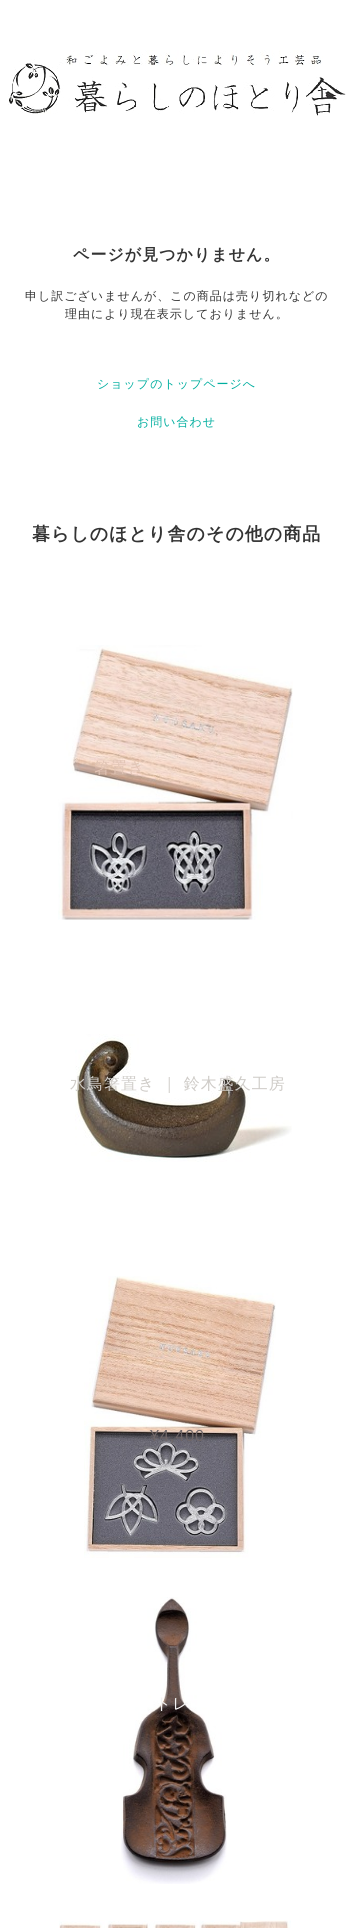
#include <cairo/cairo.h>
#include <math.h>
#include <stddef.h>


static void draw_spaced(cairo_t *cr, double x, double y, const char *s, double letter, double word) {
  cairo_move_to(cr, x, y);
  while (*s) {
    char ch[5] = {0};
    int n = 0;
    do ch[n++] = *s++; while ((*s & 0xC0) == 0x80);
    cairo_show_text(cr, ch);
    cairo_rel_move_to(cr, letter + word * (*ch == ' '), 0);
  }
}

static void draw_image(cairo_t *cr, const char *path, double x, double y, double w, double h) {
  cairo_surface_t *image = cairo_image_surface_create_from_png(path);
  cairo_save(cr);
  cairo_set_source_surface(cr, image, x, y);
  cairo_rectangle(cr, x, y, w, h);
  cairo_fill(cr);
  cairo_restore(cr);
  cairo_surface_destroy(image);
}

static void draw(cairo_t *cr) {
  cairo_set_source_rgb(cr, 1, 1, 1);
  cairo_paint(cr);
  draw_image(cr, "images/1.png", 8, 50, 338, 66);
  draw_image(cr, "images/2.png", 58, 645, 235, 275);
  draw_image(cr, "images/3.png", 75, 1034, 217, 128);
  draw_image(cr, "images/4.png", 84, 1276, 192, 282);
  draw_image(cr, "images/5.png", 121, 1597, 106, 287);
  draw_image(cr, "images/6.png", 59, 1920, 232, 8);
  cairo_select_font_face(cr, "WenQuanYi Zen Hei", CAIRO_FONT_SLANT_NORMAL, CAIRO_FONT_WEIGHT_BOLD);
  cairo_set_font_size(cr, 16);
  cairo_set_source_rgb(cr, 51 / 255.0, 51 / 255.0, 51 / 255.0);
  draw_spaced(cr, 73, 260, "ページが見つかりません。", 1, 0);
  cairo_select_font_face(cr, "WenQuanYi Zen Hei Medium", CAIRO_FONT_SLANT_NORMAL, CAIRO_FONT_WEIGHT_NORMAL);
  cairo_set_font_size(cr, 12);
  draw_spaced(cr, 25, 300, "申し訳ございませんが、この商品は売り切れなどの", 1, 0);
  draw_spaced(cr, 65, 318, "理由により現在表示しておりません。", 1, 0);
  cairo_set_source_rgb(cr, 0, 174 / 255.0, 159 / 255.0);
  draw_spaced(cr, 97, 388, "ショップのトップページへ", 1, 0);
  draw_spaced(cr, 137, 426, "お問い合わせ", 1, 0);
  cairo_select_font_face(cr, "WenQuanYi Zen Hei", CAIRO_FONT_SLANT_NORMAL, CAIRO_FONT_WEIGHT_BOLD);
  cairo_set_font_size(cr, 18);
  cairo_set_source_rgb(cr, 51 / 255.0, 51 / 255.0, 51 / 255.0);
  draw_spaced(cr, 32, 540, "暮らしのほとり舎のその他の商品", 1, 0);
  cairo_select_font_face(cr, "WenQuanYi Zen Hei Medium", CAIRO_FONT_SLANT_NORMAL, CAIRO_FONT_WEIGHT_NORMAL);
  cairo_set_font_size(cr, 16);
  cairo_set_source_rgb(cr, 226 / 255.0, 197 / 255.0, 182 / 255.0);
  draw_spaced(cr, 94, 773, "箸置き", 1, 0);
  cairo_set_source_rgb(cr, 207 / 255.0, 204 / 255.0, 200 / 255.0);
  draw_spaced(cr, 70, 1089, "水鳥箸置き ｜ 鈴木盛久工房", 1, 0);
  cairo_select_font_face(cr, "Liberation Sans", CAIRO_FONT_SLANT_NORMAL, CAIRO_FONT_WEIGHT_NORMAL);
  cairo_set_source_rgb(cr, 111 / 255.0, 102 / 255.0, 103 / 255.0);
  draw_spaced(cr, 150, 1441, "¥4,400", 1, 0);
  cairo_select_font_face(cr, "WenQuanYi Zen Hei Medium", CAIRO_FONT_SLANT_NORMAL, CAIRO_FONT_WEIGHT_NORMAL);
  cairo_set_source_rgb(cr, 243 / 255.0, 242 / 255.0, 242 / 255.0);
  draw_spaced(cr, 155, 1709, "トレ", 1, 0);
}

int main(void) {
  cairo_surface_t *surface = cairo_image_surface_create(CAIRO_FORMAT_RGB24, 354, 1928);
  cairo_t *cr = cairo_create(surface);
  cairo_font_options_t *options = cairo_font_options_create();
  cairo_font_options_set_hint_metrics(options, CAIRO_HINT_METRICS_OFF);
  cairo_font_options_set_hint_style(options, CAIRO_HINT_STYLE_NONE);
  cairo_set_font_options(cr, options);
  cairo_set_miter_limit(cr, 4);
  draw(cr);
  cairo_surface_write_to_png(surface, "out.png");
  cairo_font_options_destroy(options);
  cairo_destroy(cr);
  cairo_surface_destroy(surface);
  return 0;
}
